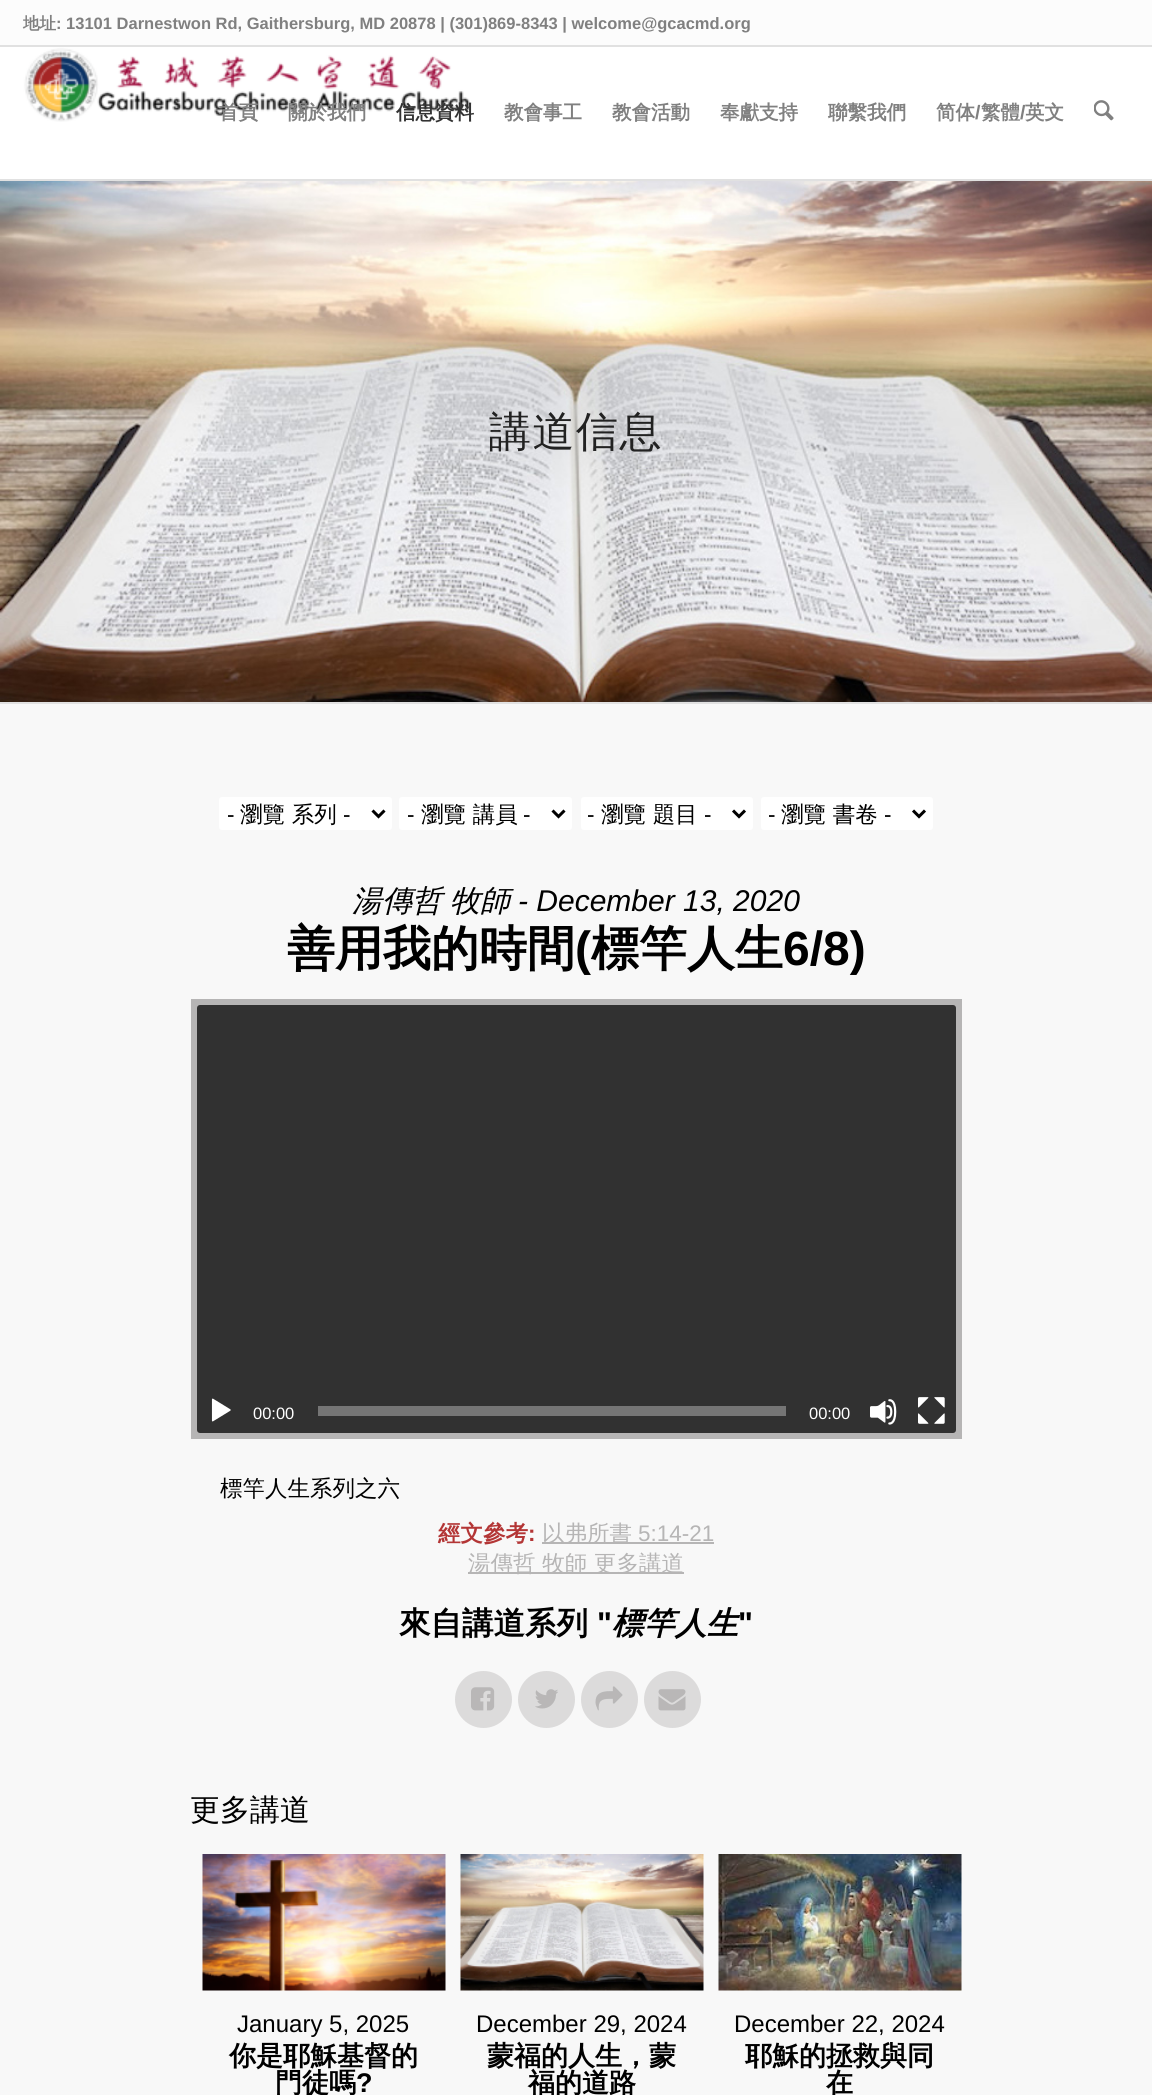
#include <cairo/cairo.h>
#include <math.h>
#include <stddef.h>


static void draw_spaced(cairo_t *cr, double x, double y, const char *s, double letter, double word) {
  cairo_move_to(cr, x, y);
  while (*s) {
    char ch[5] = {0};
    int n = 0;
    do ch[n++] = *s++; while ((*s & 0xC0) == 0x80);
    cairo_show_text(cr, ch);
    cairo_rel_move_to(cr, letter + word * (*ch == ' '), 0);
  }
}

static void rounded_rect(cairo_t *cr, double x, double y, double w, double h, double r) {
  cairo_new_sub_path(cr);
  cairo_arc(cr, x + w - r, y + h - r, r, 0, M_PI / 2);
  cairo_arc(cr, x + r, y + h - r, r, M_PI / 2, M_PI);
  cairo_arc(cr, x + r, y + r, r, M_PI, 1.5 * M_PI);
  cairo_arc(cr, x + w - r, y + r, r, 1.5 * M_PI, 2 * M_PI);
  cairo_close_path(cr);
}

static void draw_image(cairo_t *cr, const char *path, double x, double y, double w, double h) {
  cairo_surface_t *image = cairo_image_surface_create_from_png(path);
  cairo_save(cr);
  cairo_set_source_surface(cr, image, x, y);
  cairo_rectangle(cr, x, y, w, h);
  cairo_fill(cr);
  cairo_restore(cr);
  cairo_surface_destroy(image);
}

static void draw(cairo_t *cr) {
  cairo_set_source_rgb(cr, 1, 1, 1);
  cairo_paint(cr);
  cairo_set_source_rgb(cr, 252 / 255.0, 252 / 255.0, 252 / 255.0);
  cairo_rectangle(cr, 0, 0, 1152, 45);
  cairo_fill(cr);
  cairo_set_source_rgb(cr, 225 / 255.0, 225 / 255.0, 225 / 255.0);
  cairo_rectangle(cr, 0, 45, 1152, 2);
  cairo_fill(cr);
  cairo_rectangle(cr, 0, 179, 1152, 2);
  cairo_fill(cr);
  draw_image(cr, "images/1.png", 22, 47, 451, 75);
  draw_image(cr, "images/2.png", 1094, 100, 20, 21);
  draw_image(cr, "images/3.png", 0, 181, 1152, 521);
  cairo_set_source_rgb(cr, 248 / 255.0, 248 / 255.0, 248 / 255.0);
  cairo_rectangle(cr, 0, 704, 1152, 1391);
  cairo_fill(cr);
  cairo_set_source_rgb(cr, 225 / 255.0, 225 / 255.0, 225 / 255.0);
  cairo_rectangle(cr, 0, 702, 1152, 2);
  cairo_fill(cr);
  cairo_set_source_rgb(cr, 1, 1, 1);
  rounded_rect(cr, 219, 797, 173, 33, 3);
  cairo_fill(cr);
  cairo_new_path(cr);
  cairo_move_to(cr, 372.5, 810.5);
  cairo_line_to(cr, 378.5, 816.5);
  cairo_line_to(cr, 384.5, 810.5);
  cairo_set_source_rgb(cr, 0, 0, 0);
  cairo_set_line_width(cr, 3);
  cairo_stroke(cr);
  cairo_set_source_rgb(cr, 1, 1, 1);
  rounded_rect(cr, 399, 797, 173, 33, 3);
  cairo_fill(cr);
  cairo_new_path(cr);
  cairo_move_to(cr, 552.5, 810.5);
  cairo_line_to(cr, 558.5, 816.5);
  cairo_line_to(cr, 564.5, 810.5);
  cairo_set_source_rgb(cr, 0, 0, 0);
  cairo_stroke(cr);
  cairo_set_source_rgb(cr, 1, 1, 1);
  rounded_rect(cr, 581, 797, 172, 33, 3);
  cairo_fill(cr);
  cairo_new_path(cr);
  cairo_move_to(cr, 733, 810.5);
  cairo_line_to(cr, 739, 816.5);
  cairo_line_to(cr, 745, 810.5);
  cairo_set_source_rgb(cr, 0, 0, 0);
  cairo_stroke(cr);
  cairo_set_source_rgb(cr, 1, 1, 1);
  rounded_rect(cr, 761, 797, 172, 33, 3);
  cairo_fill(cr);
  cairo_new_path(cr);
  cairo_move_to(cr, 913, 810.5);
  cairo_line_to(cr, 919, 816.5);
  cairo_line_to(cr, 925, 810.5);
  cairo_set_source_rgb(cr, 0, 0, 0);
  cairo_stroke(cr);
  cairo_set_source_rgb(cr, 182 / 255.0, 181 / 255.0, 181 / 255.0);
  cairo_rectangle(cr, 191, 999, 771, 440);
  cairo_fill(cr);
  cairo_set_source_rgb(cr, 49 / 255.0, 49 / 255.0, 49 / 255.0);
  rounded_rect(cr, 197, 1005, 759, 428, 3);
  cairo_fill(cr);
  draw_image(cr, "images/4.png", 211, 1398, 20, 24);
  cairo_set_source_rgb(cr, 117 / 255.0, 117 / 255.0, 117 / 255.0);
  cairo_rectangle(cr, 318, 1406, 468, 10);
  cairo_fill(cr);
  draw_image(cr, "images/5.png", 870, 1399, 27, 26);
  draw_image(cr, "images/6.png", 918, 1397, 27, 27);
  cairo_set_source_rgb(cr, 182 / 255.0, 181 / 255.0, 181 / 255.0);
  cairo_rectangle(cr, 542, 1542, 172, 2);
  cairo_fill(cr);
  cairo_rectangle(cr, 468, 1572, 216, 2);
  cairo_fill(cr);
  cairo_set_source_rgb(cr, 220 / 255.0, 219 / 255.0, 219 / 255.0);
  cairo_arc(cr, 483.5, 1699.5, 28.5, 0, 2 * M_PI);
  cairo_fill(cr);
  draw_image(cr, "images/7.png", 471, 1687, 24, 24);
  cairo_arc(cr, 546.5, 1699.5, 28.5, 0, 2 * M_PI);
  cairo_fill(cr);
  draw_image(cr, "images/8.png", 535, 1689, 23, 20);
  cairo_arc(cr, 609.5, 1699.5, 28.5, 0, 2 * M_PI);
  cairo_fill(cr);
  draw_image(cr, "images/9.png", 595, 1686, 28, 25);
  cairo_arc(cr, 672.5, 1699.5, 28.5, 0, 2 * M_PI);
  cairo_fill(cr);
  draw_image(cr, "images/10.png", 658, 1689, 28, 22);
  draw_image(cr, "images/11.png", 202, 1854, 244, 137);
  draw_image(cr, "images/12.png", 460, 1854, 244, 137);
  draw_image(cr, "images/13.png", 718, 1854, 244, 137);
  cairo_select_font_face(cr, "WenQuanYi Zen Hei", CAIRO_FONT_SLANT_NORMAL, CAIRO_FONT_WEIGHT_BOLD);
  cairo_set_font_size(cr, 16.5);
  cairo_set_source_rgb(cr, 128 / 255.0, 128 / 255.0, 128 / 255.0);
  cairo_move_to(cr, 23, 29);
  cairo_show_text(cr, "地址");
  cairo_select_font_face(cr, "Liberation Sans", CAIRO_FONT_SLANT_NORMAL, CAIRO_FONT_WEIGHT_BOLD);
  cairo_move_to(cr, 56, 29);
  cairo_show_text(cr, ": 13101 Darnestwon Rd, Gaithersburg, MD 20878 | (301)869‐8343 | welcome@gcacmd.org");
  cairo_select_font_face(cr, "WenQuanYi Zen Hei", CAIRO_FONT_SLANT_NORMAL, CAIRO_FONT_WEIGHT_BOLD);
  cairo_set_font_size(cr, 19.5);
  cairo_move_to(cr, 219, 119);
  cairo_show_text(cr, "首頁");
  cairo_move_to(cr, 288, 119);
  cairo_show_text(cr, "關於我們");
  cairo_set_source_rgb(cr, 51 / 255.0, 51 / 255.0, 51 / 255.0);
  cairo_move_to(cr, 396, 119);
  cairo_show_text(cr, "信息資料");
  cairo_set_source_rgb(cr, 128 / 255.0, 128 / 255.0, 128 / 255.0);
  cairo_move_to(cr, 504, 119);
  cairo_show_text(cr, "教會事工");
  cairo_move_to(cr, 612, 119);
  cairo_show_text(cr, "教會活動");
  cairo_move_to(cr, 720, 119);
  cairo_show_text(cr, "奉獻支持");
  cairo_move_to(cr, 828, 119);
  cairo_show_text(cr, "聯繫我們");
  cairo_move_to(cr, 936, 119);
  cairo_show_text(cr, "简体");
  cairo_select_font_face(cr, "Liberation Sans", CAIRO_FONT_SLANT_NORMAL, CAIRO_FONT_WEIGHT_BOLD);
  cairo_move_to(cr, 975, 119);
  cairo_show_text(cr, "/");
  cairo_select_font_face(cr, "WenQuanYi Zen Hei", CAIRO_FONT_SLANT_NORMAL, CAIRO_FONT_WEIGHT_BOLD);
  cairo_move_to(cr, 981, 119);
  cairo_show_text(cr, "繁體");
  cairo_select_font_face(cr, "Liberation Sans", CAIRO_FONT_SLANT_NORMAL, CAIRO_FONT_WEIGHT_BOLD);
  cairo_move_to(cr, 1020, 119);
  cairo_show_text(cr, "/");
  cairo_select_font_face(cr, "WenQuanYi Zen Hei", CAIRO_FONT_SLANT_NORMAL, CAIRO_FONT_WEIGHT_BOLD);
  cairo_move_to(cr, 1025, 119);
  cairo_show_text(cr, "英文");
  cairo_select_font_face(cr, "WenQuanYi Zen Hei Medium", CAIRO_FONT_SLANT_NORMAL, CAIRO_FONT_WEIGHT_NORMAL);
  cairo_set_font_size(cr, 42);
  cairo_set_source_rgb(cr, 34 / 255.0, 34 / 255.0, 34 / 255.0);
  draw_spaced(cr, 489, 446, "講道信息", 1.5, 0);
  cairo_select_font_face(cr, "Liberation Sans", CAIRO_FONT_SLANT_NORMAL, CAIRO_FONT_WEIGHT_NORMAL);
  cairo_set_font_size(cr, 22.5);
  cairo_set_source_rgb(cr, 0, 0, 0);
  cairo_move_to(cr, 227, 822);
  cairo_show_text(cr, "-");
  cairo_select_font_face(cr, "WenQuanYi Zen Hei Medium", CAIRO_FONT_SLANT_NORMAL, CAIRO_FONT_WEIGHT_NORMAL);
  cairo_move_to(cr, 240, 822);
  cairo_show_text(cr, "瀏覽 系列");
  cairo_select_font_face(cr, "Liberation Sans", CAIRO_FONT_SLANT_NORMAL, CAIRO_FONT_WEIGHT_NORMAL);
  cairo_move_to(cr, 343, 822);
  cairo_show_text(cr, "-");
  cairo_move_to(cr, 407, 822);
  cairo_show_text(cr, "-");
  cairo_select_font_face(cr, "WenQuanYi Zen Hei Medium", CAIRO_FONT_SLANT_NORMAL, CAIRO_FONT_WEIGHT_NORMAL);
  cairo_move_to(cr, 421, 822);
  cairo_show_text(cr, "瀏覽 講員");
  cairo_select_font_face(cr, "Liberation Sans", CAIRO_FONT_SLANT_NORMAL, CAIRO_FONT_WEIGHT_NORMAL);
  cairo_move_to(cr, 523, 822);
  cairo_show_text(cr, "-");
  cairo_move_to(cr, 587, 822);
  cairo_show_text(cr, "-");
  cairo_select_font_face(cr, "WenQuanYi Zen Hei Medium", CAIRO_FONT_SLANT_NORMAL, CAIRO_FONT_WEIGHT_NORMAL);
  cairo_move_to(cr, 601, 822);
  cairo_show_text(cr, "瀏覽 題目");
  cairo_select_font_face(cr, "Liberation Sans", CAIRO_FONT_SLANT_NORMAL, CAIRO_FONT_WEIGHT_NORMAL);
  cairo_move_to(cr, 704, 822);
  cairo_show_text(cr, "-");
  cairo_move_to(cr, 768, 822);
  cairo_show_text(cr, "-");
  cairo_select_font_face(cr, "WenQuanYi Zen Hei Medium", CAIRO_FONT_SLANT_NORMAL, CAIRO_FONT_WEIGHT_NORMAL);
  cairo_move_to(cr, 781, 822);
  cairo_show_text(cr, "瀏覽 書卷");
  cairo_select_font_face(cr, "Liberation Sans", CAIRO_FONT_SLANT_NORMAL, CAIRO_FONT_WEIGHT_NORMAL);
  cairo_move_to(cr, 884, 822);
  cairo_show_text(cr, "-");
  cairo_select_font_face(cr, "WenQuanYi Zen Hei Medium", CAIRO_FONT_SLANT_ITALIC, CAIRO_FONT_WEIGHT_NORMAL);
  cairo_set_font_size(cr, 30);
  cairo_move_to(cr, 352, 911);
  cairo_show_text(cr, "湯傳哲");
  cairo_move_to(cr, 450, 911);
  cairo_show_text(cr, "牧師");
  cairo_select_font_face(cr, "Liberation Sans", CAIRO_FONT_SLANT_ITALIC, CAIRO_FONT_WEIGHT_NORMAL);
  cairo_move_to(cr, 518, 911);
  cairo_show_text(cr, "- December 13, 2020");
  cairo_select_font_face(cr, "WenQuanYi Zen Hei", CAIRO_FONT_SLANT_NORMAL, CAIRO_FONT_WEIGHT_BOLD);
  cairo_set_font_size(cr, 48);
  cairo_move_to(cr, 287, 965);
  cairo_show_text(cr, "善用我的時間");
  cairo_select_font_face(cr, "Liberation Sans", CAIRO_FONT_SLANT_NORMAL, CAIRO_FONT_WEIGHT_BOLD);
  cairo_move_to(cr, 575, 965);
  cairo_show_text(cr, "(");
  cairo_select_font_face(cr, "WenQuanYi Zen Hei", CAIRO_FONT_SLANT_NORMAL, CAIRO_FONT_WEIGHT_BOLD);
  cairo_move_to(cr, 591, 965);
  cairo_show_text(cr, "標竿人生");
  cairo_select_font_face(cr, "Liberation Sans", CAIRO_FONT_SLANT_NORMAL, CAIRO_FONT_WEIGHT_BOLD);
  cairo_move_to(cr, 783, 965);
  cairo_show_text(cr, "6/8)");
  cairo_select_font_face(cr, "Liberation Sans", CAIRO_FONT_SLANT_NORMAL, CAIRO_FONT_WEIGHT_NORMAL);
  cairo_set_font_size(cr, 16.5);
  cairo_set_source_rgb(cr, 1, 1, 1);
  cairo_move_to(cr, 253, 1419);
  cairo_show_text(cr, "00:00");
  cairo_move_to(cr, 809, 1419);
  cairo_show_text(cr, "00:00");
  cairo_select_font_face(cr, "WenQuanYi Zen Hei Medium", CAIRO_FONT_SLANT_NORMAL, CAIRO_FONT_WEIGHT_NORMAL);
  cairo_set_font_size(cr, 22.5);
  cairo_set_source_rgb(cr, 0, 0, 0);
  cairo_move_to(cr, 220, 1496);
  cairo_show_text(cr, "標竿人生系列之六");
  cairo_select_font_face(cr, "WenQuanYi Zen Hei", CAIRO_FONT_SLANT_NORMAL, CAIRO_FONT_WEIGHT_BOLD);
  cairo_set_source_rgb(cr, 179 / 255.0, 53 / 255.0, 53 / 255.0);
  cairo_move_to(cr, 438, 1541);
  cairo_show_text(cr, "經文參考");
  cairo_select_font_face(cr, "Liberation Sans", CAIRO_FONT_SLANT_NORMAL, CAIRO_FONT_WEIGHT_BOLD);
  cairo_move_to(cr, 528, 1541);
  cairo_show_text(cr, ":");
  cairo_select_font_face(cr, "WenQuanYi Zen Hei Medium", CAIRO_FONT_SLANT_NORMAL, CAIRO_FONT_WEIGHT_NORMAL);
  cairo_set_source_rgb(cr, 182 / 255.0, 181 / 255.0, 181 / 255.0);
  cairo_move_to(cr, 542, 1541);
  cairo_show_text(cr, "以弗所書");
  cairo_select_font_face(cr, "Liberation Sans", CAIRO_FONT_SLANT_NORMAL, CAIRO_FONT_WEIGHT_NORMAL);
  cairo_move_to(cr, 638, 1541);
  cairo_show_text(cr, "5:14-21");
  cairo_select_font_face(cr, "WenQuanYi Zen Hei Medium", CAIRO_FONT_SLANT_NORMAL, CAIRO_FONT_WEIGHT_NORMAL);
  cairo_move_to(cr, 468, 1571);
  cairo_show_text(cr, "湯傳哲 牧師 更多講道");
  cairo_select_font_face(cr, "WenQuanYi Zen Hei", CAIRO_FONT_SLANT_NORMAL, CAIRO_FONT_WEIGHT_BOLD);
  cairo_set_font_size(cr, 31.5);
  cairo_set_source_rgb(cr, 0, 0, 0);
  cairo_move_to(cr, 399, 1634);
  cairo_show_text(cr, "來自講道系列");
  cairo_select_font_face(cr, "Liberation Sans", CAIRO_FONT_SLANT_NORMAL, CAIRO_FONT_WEIGHT_BOLD);
  cairo_move_to(cr, 597, 1634);
  cairo_show_text(cr, "\"");
  cairo_select_font_face(cr, "WenQuanYi Zen Hei", CAIRO_FONT_SLANT_ITALIC, CAIRO_FONT_WEIGHT_BOLD);
  cairo_move_to(cr, 612, 1634);
  cairo_show_text(cr, "標竿人生");
  cairo_select_font_face(cr, "Liberation Sans", CAIRO_FONT_SLANT_NORMAL, CAIRO_FONT_WEIGHT_BOLD);
  cairo_move_to(cr, 738, 1634);
  cairo_show_text(cr, "\"");
  cairo_select_font_face(cr, "WenQuanYi Zen Hei Medium", CAIRO_FONT_SLANT_NORMAL, CAIRO_FONT_WEIGHT_NORMAL);
  cairo_set_font_size(cr, 30);
  cairo_move_to(cr, 190, 1820);
  cairo_show_text(cr, "更多講道");
  cairo_select_font_face(cr, "Liberation Sans", CAIRO_FONT_SLANT_NORMAL, CAIRO_FONT_WEIGHT_NORMAL);
  cairo_set_font_size(cr, 24);
  cairo_move_to(cr, 237, 2032);
  cairo_show_text(cr, "January 5, 2025");
  cairo_select_font_face(cr, "WenQuanYi Zen Hei", CAIRO_FONT_SLANT_NORMAL, CAIRO_FONT_WEIGHT_BOLD);
  cairo_set_font_size(cr, 27);
  cairo_move_to(cr, 229, 2065);
  cairo_show_text(cr, "你是耶穌基督的");
  cairo_move_to(cr, 275, 2092);
  cairo_show_text(cr, "門徒嗎");
  cairo_select_font_face(cr, "Liberation Sans", CAIRO_FONT_SLANT_NORMAL, CAIRO_FONT_WEIGHT_BOLD);
  cairo_move_to(cr, 356, 2092);
  cairo_show_text(cr, "?");
  cairo_select_font_face(cr, "Liberation Sans", CAIRO_FONT_SLANT_NORMAL, CAIRO_FONT_WEIGHT_NORMAL);
  cairo_set_font_size(cr, 24);
  cairo_move_to(cr, 476, 2032);
  cairo_show_text(cr, "December 29, 2024");
  cairo_select_font_face(cr, "WenQuanYi Zen Hei", CAIRO_FONT_SLANT_NORMAL, CAIRO_FONT_WEIGHT_BOLD);
  cairo_set_font_size(cr, 27);
  cairo_move_to(cr, 487, 2065);
  cairo_show_text(cr, "蒙福的人生，蒙");
  cairo_move_to(cr, 528, 2092);
  cairo_show_text(cr, "福的道路");
  cairo_select_font_face(cr, "Liberation Sans", CAIRO_FONT_SLANT_NORMAL, CAIRO_FONT_WEIGHT_NORMAL);
  cairo_set_font_size(cr, 24);
  cairo_move_to(cr, 734, 2032);
  cairo_show_text(cr, "December 22, 2024");
  cairo_select_font_face(cr, "WenQuanYi Zen Hei", CAIRO_FONT_SLANT_NORMAL, CAIRO_FONT_WEIGHT_BOLD);
  cairo_set_font_size(cr, 27);
  cairo_move_to(cr, 745, 2065);
  cairo_show_text(cr, "耶穌的拯救與同");
  cairo_move_to(cr, 826, 2092);
  cairo_show_text(cr, "在");
}

int main(void) {
  cairo_surface_t *surface = cairo_image_surface_create(CAIRO_FORMAT_RGB24, 1152, 2095);
  cairo_t *cr = cairo_create(surface);
  cairo_font_options_t *options = cairo_font_options_create();
  cairo_font_options_set_hint_metrics(options, CAIRO_HINT_METRICS_OFF);
  cairo_font_options_set_hint_style(options, CAIRO_HINT_STYLE_NONE);
  cairo_set_font_options(cr, options);
  cairo_set_miter_limit(cr, 4);
  draw(cr);
  cairo_surface_write_to_png(surface, "out.png");
  cairo_font_options_destroy(options);
  cairo_destroy(cr);
  cairo_surface_destroy(surface);
  return 0;
}
